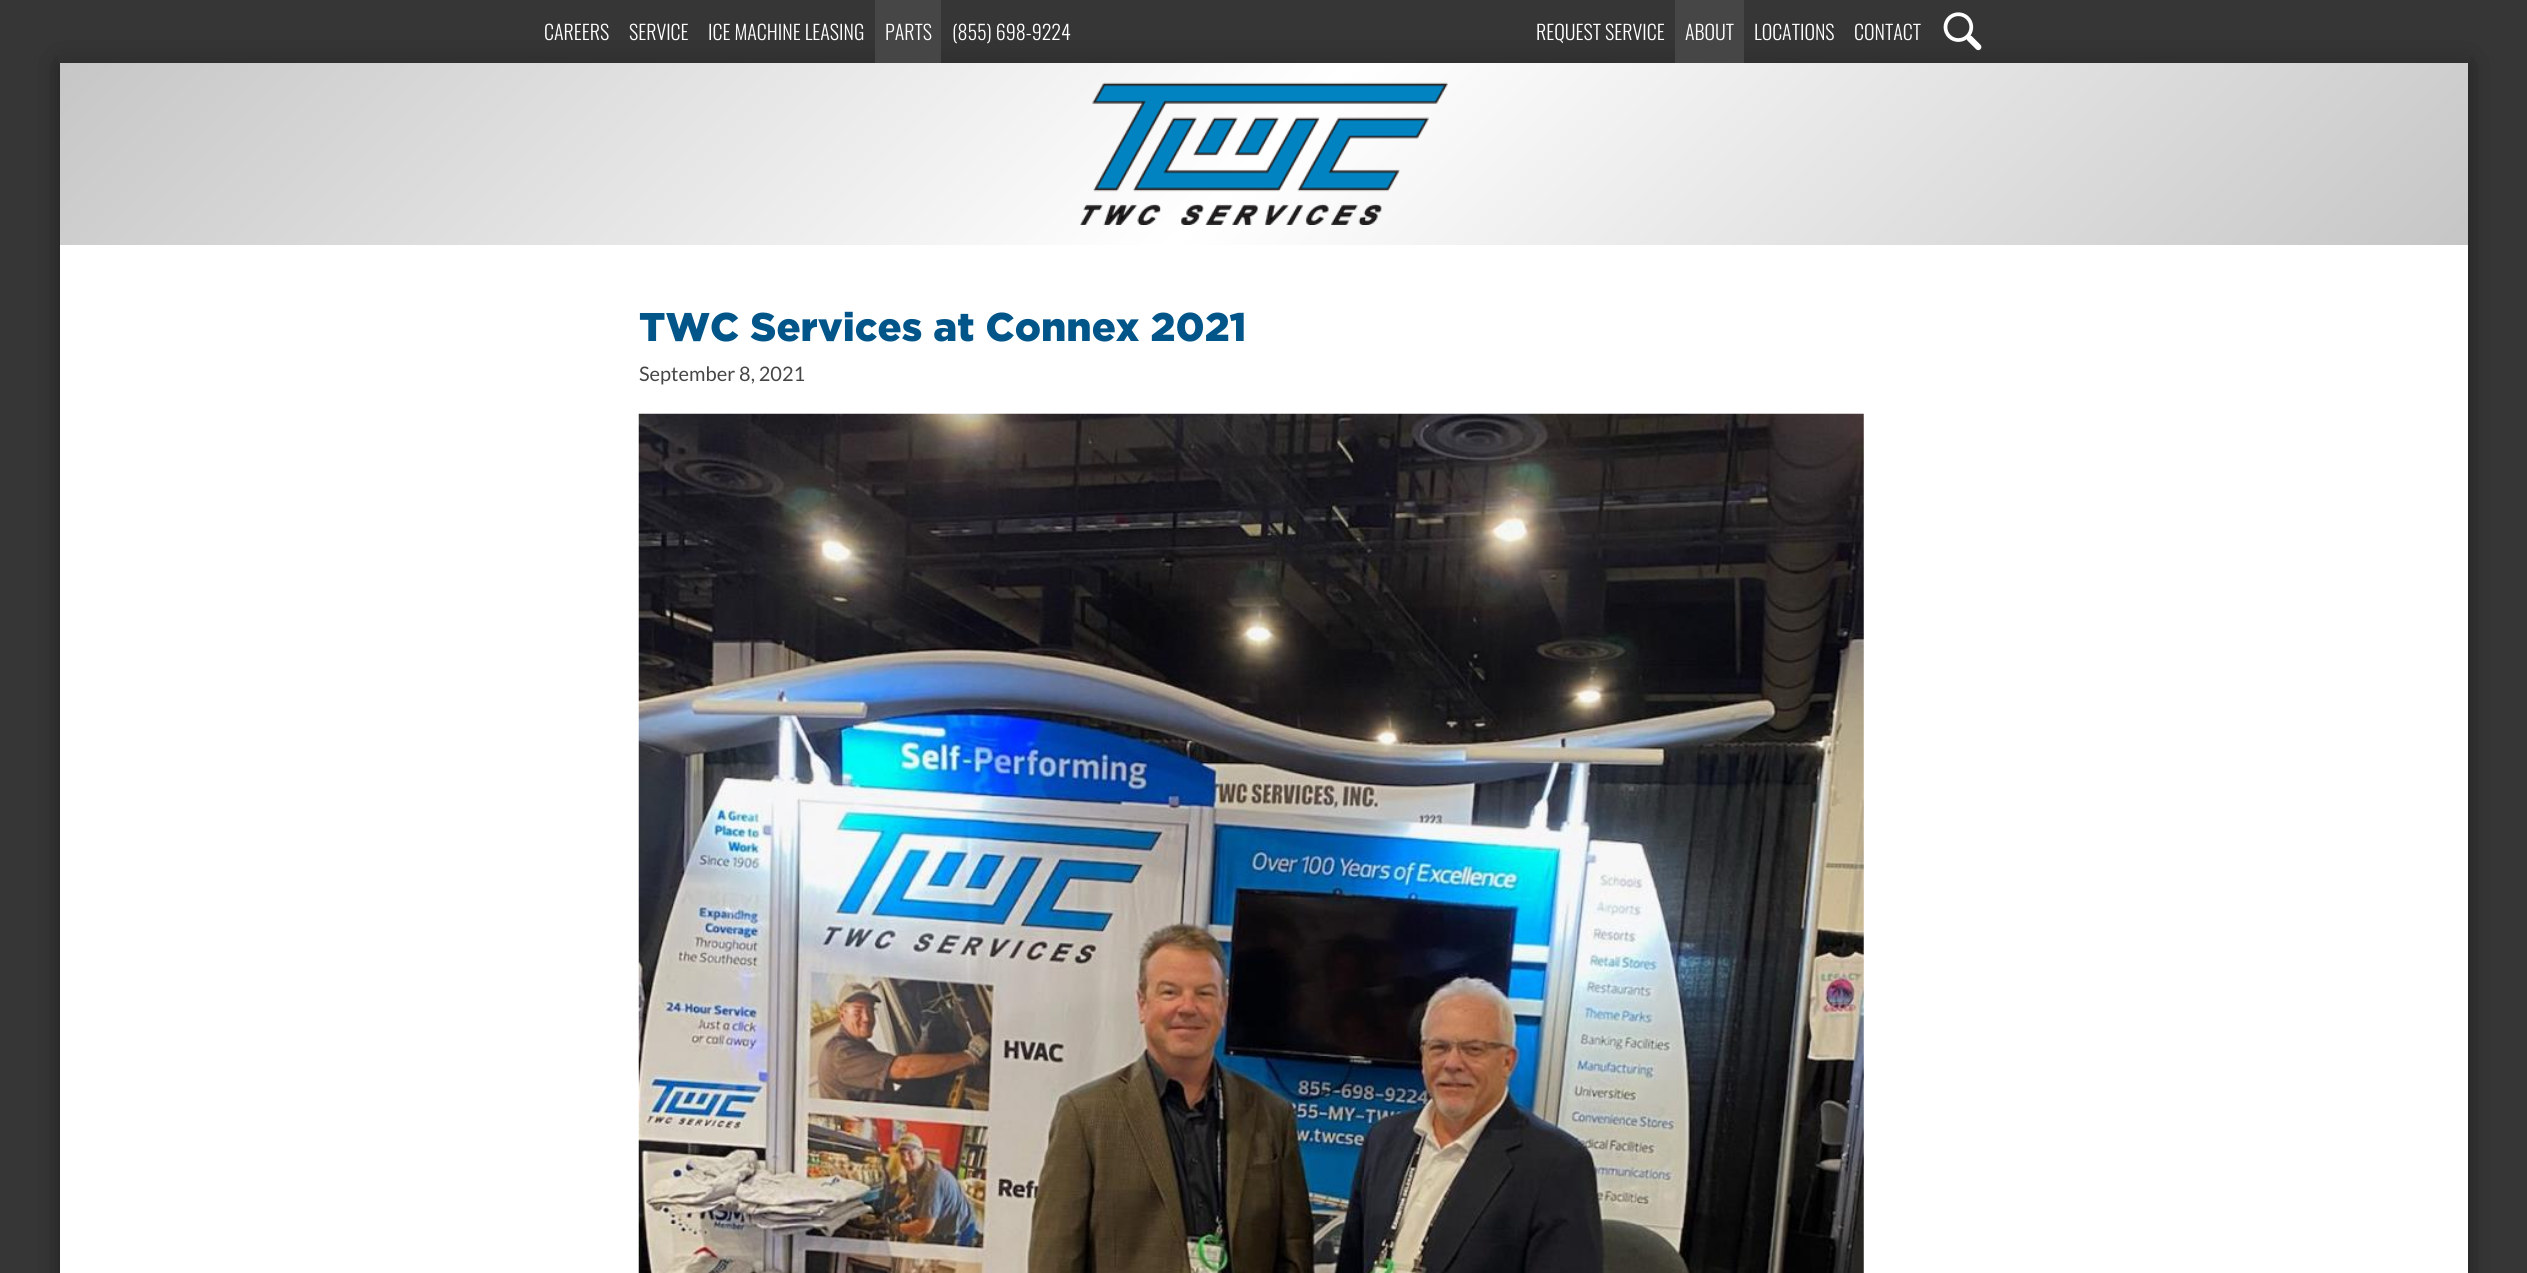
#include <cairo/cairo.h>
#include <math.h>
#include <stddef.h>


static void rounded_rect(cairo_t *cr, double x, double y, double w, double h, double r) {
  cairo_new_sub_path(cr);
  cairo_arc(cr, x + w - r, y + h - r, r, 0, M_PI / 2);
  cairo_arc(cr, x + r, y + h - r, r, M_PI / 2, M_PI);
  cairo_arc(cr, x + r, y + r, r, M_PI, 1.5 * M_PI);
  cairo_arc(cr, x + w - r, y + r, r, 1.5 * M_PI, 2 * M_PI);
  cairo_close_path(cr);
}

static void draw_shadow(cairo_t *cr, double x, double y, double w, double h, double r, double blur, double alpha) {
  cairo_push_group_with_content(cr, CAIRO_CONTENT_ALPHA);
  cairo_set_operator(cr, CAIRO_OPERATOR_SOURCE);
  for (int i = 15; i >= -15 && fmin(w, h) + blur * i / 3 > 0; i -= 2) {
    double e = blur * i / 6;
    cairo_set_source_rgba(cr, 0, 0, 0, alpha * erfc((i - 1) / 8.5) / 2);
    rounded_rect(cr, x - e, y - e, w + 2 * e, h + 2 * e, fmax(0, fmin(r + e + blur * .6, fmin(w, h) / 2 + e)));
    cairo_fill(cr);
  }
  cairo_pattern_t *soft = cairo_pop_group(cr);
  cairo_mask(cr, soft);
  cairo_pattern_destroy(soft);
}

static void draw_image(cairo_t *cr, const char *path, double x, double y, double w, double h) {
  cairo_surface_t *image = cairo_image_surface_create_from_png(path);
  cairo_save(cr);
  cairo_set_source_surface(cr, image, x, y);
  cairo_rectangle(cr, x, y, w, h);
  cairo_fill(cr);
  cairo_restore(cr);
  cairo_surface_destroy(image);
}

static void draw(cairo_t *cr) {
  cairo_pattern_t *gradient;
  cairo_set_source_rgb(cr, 54 / 255.0, 54 / 255.0, 54 / 255.0);
  cairo_paint(cr);
  cairo_set_source_rgb(cr, 29 / 255.0, 29 / 255.0, 29 / 255.0);
  draw_shadow(cr, 60, 63, 2408, 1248, 0, 12.5, 1);
  cairo_set_source_rgba(cr, 54 / 255.0, 54 / 255.0, 54 / 255.0, 0.5);
  cairo_rectangle(cr, 58, 53, 2412, 10);
  cairo_fill(cr);
  cairo_set_source_rgb(cr, 70 / 255.0, 70 / 255.0, 70 / 255.0);
  cairo_rectangle(cr, 875, 0, 66, 63);
  cairo_fill(cr);
  cairo_rectangle(cr, 1675, 0, 69, 63);
  cairo_fill(cr);
  draw_image(cr, "images/1.png", 1943, 12, 39, 39);
  gradient = cairo_pattern_create_linear(1911, 801, 616, -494);
  cairo_pattern_add_color_stop_rgba(gradient, 0, 198 / 255.0, 198 / 255.0, 198 / 255.0, 1);
  cairo_pattern_add_color_stop_rgba(gradient, 0.5, 1, 1, 1, 1);
  cairo_pattern_add_color_stop_rgba(gradient, 1, 198 / 255.0, 198 / 255.0, 198 / 255.0, 1);
  cairo_set_source(cr, gradient);
  cairo_pattern_destroy(gradient);
  cairo_rectangle(cr, 60, 63, 2408, 182);
  cairo_fill(cr);
  draw_image(cr, "images/2.png", 1080, 82, 368, 143);
  cairo_set_source_rgb(cr, 1, 1, 1);
  cairo_rectangle(cr, 60, 245, 2408, 1028);
  cairo_fill(cr);
  draw_image(cr, "images/3.png", 638, 413, 1226, 860);
  cairo_select_font_face(cr, "Oswald Light", CAIRO_FONT_SLANT_NORMAL, CAIRO_FONT_WEIGHT_NORMAL);
  cairo_set_font_size(cr, 20);
  cairo_move_to(cr, 544, 40);
  cairo_show_text(cr, "CAREERS");
  cairo_move_to(cr, 629, 40);
  cairo_show_text(cr, "SERVICE");
  cairo_move_to(cr, 708, 40);
  cairo_show_text(cr, "ICE MACHINE LEASING");
  cairo_move_to(cr, 885, 40);
  cairo_show_text(cr, "PARTS");
  cairo_move_to(cr, 952, 40);
  cairo_show_text(cr, "(855) 698-9224");
  cairo_move_to(cr, 1536, 40);
  cairo_show_text(cr, "REQUEST SERVICE");
  cairo_move_to(cr, 1685, 40);
  cairo_show_text(cr, "ABOUT");
  cairo_move_to(cr, 1754, 40);
  cairo_show_text(cr, "LOCATIONS");
  cairo_move_to(cr, 1854, 40);
  cairo_show_text(cr, "CONTACT");
  cairo_select_font_face(cr, "Gotham Black", CAIRO_FONT_SLANT_NORMAL, CAIRO_FONT_WEIGHT_NORMAL);
  cairo_set_font_size(cr, 40);
  cairo_set_source_rgb(cr, 1 / 255.0, 85 / 255.0, 137 / 255.0);
  cairo_move_to(cr, 639, 341);
  cairo_show_text(cr, "TWC Services at Connex 2021");
  cairo_select_font_face(cr, "Lato", CAIRO_FONT_SLANT_NORMAL, CAIRO_FONT_WEIGHT_NORMAL);
  cairo_set_font_size(cr, 20);
  cairo_set_source_rgb(cr, 70 / 255.0, 70 / 255.0, 70 / 255.0);
  cairo_move_to(cr, 639, 381);
  cairo_show_text(cr, "September 8, 2021");
}

int main(void) {
  cairo_surface_t *surface = cairo_image_surface_create(CAIRO_FORMAT_RGB24, 2527, 1273);
  cairo_t *cr = cairo_create(surface);
  cairo_font_options_t *options = cairo_font_options_create();
  cairo_font_options_set_hint_metrics(options, CAIRO_HINT_METRICS_OFF);
  cairo_font_options_set_hint_style(options, CAIRO_HINT_STYLE_NONE);
  cairo_set_font_options(cr, options);
  cairo_set_miter_limit(cr, 4);
  draw(cr);
  cairo_surface_write_to_png(surface, "out.png");
  cairo_font_options_destroy(options);
  cairo_destroy(cr);
  cairo_surface_destroy(surface);
  return 0;
}
